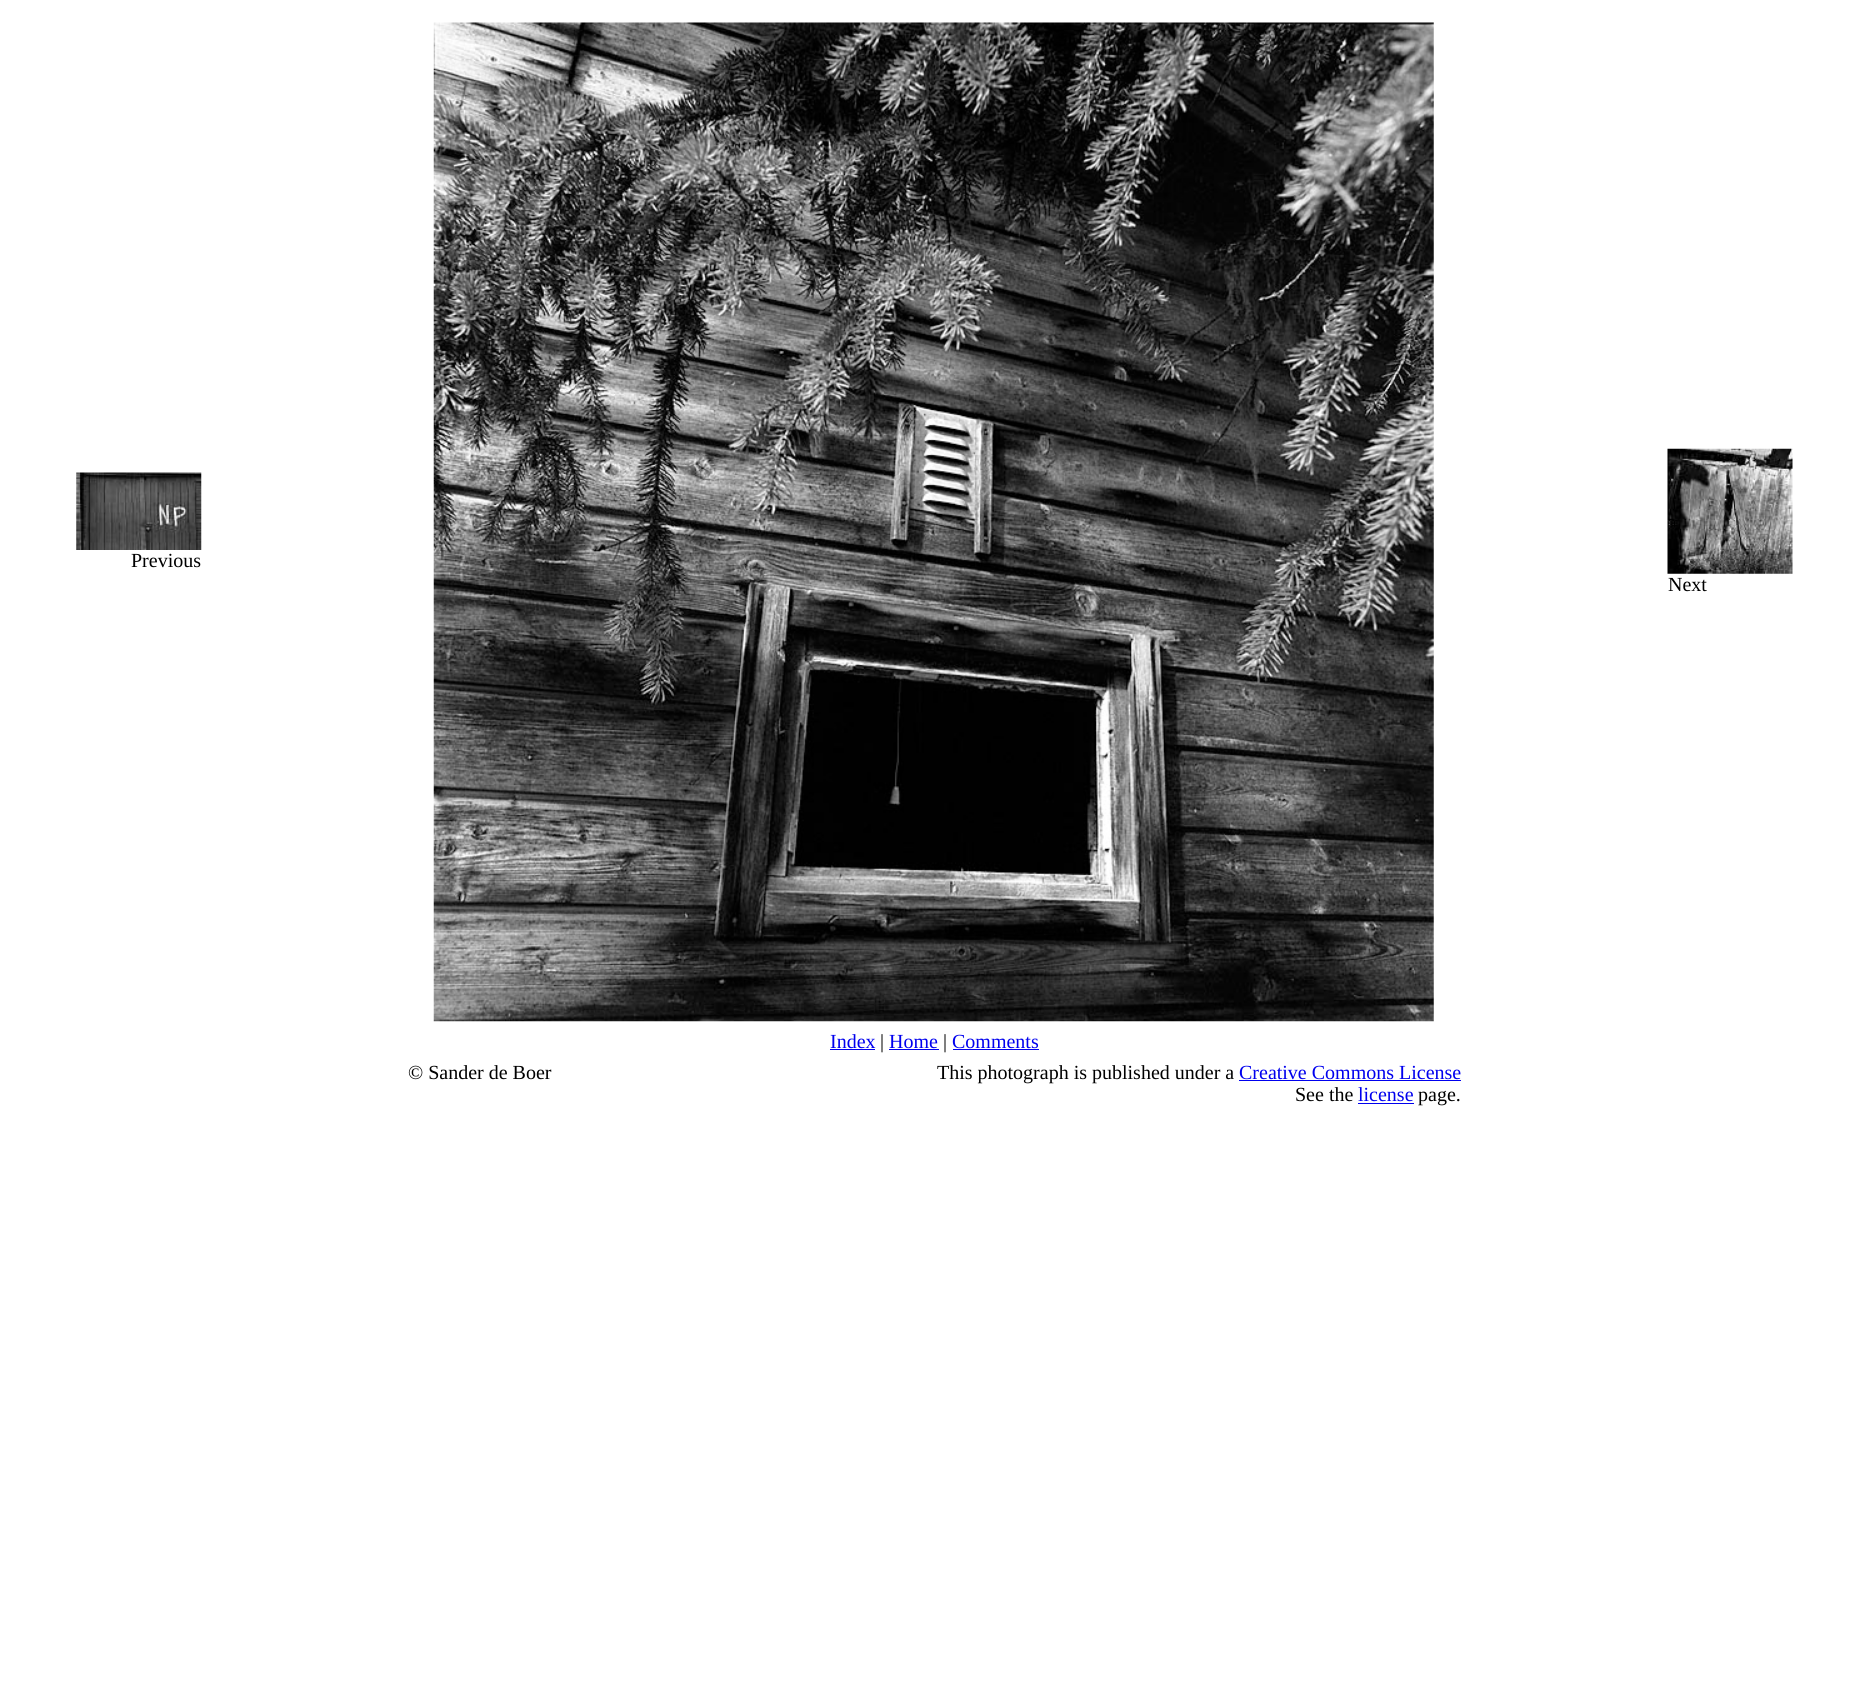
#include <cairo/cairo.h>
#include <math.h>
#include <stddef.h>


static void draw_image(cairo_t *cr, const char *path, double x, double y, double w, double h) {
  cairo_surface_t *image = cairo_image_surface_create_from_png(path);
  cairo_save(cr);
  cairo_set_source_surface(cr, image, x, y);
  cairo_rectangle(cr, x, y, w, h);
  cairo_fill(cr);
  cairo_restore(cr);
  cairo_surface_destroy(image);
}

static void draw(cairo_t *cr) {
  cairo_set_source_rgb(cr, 1, 1, 1);
  cairo_paint(cr);
  draw_image(cr, "images/1.png", 76, 472, 126, 78);
  draw_image(cr, "images/2.png", 433, 22, 1001, 1000);
  draw_image(cr, "images/3.png", 1667, 448, 126, 126);
  cairo_set_source_rgb(cr, 0, 0, 238 / 255.0);
  cairo_rectangle(cr, 830, 1049, 45, 1);
  cairo_fill(cr);
  cairo_rectangle(cr, 889, 1049, 50, 1);
  cairo_fill(cr);
  cairo_rectangle(cr, 953, 1049, 86, 1);
  cairo_fill(cr);
  cairo_rectangle(cr, 1239, 1080, 222, 1);
  cairo_fill(cr);
  cairo_rectangle(cr, 1358, 1103, 56, 1);
  cairo_fill(cr);
  cairo_select_font_face(cr, "Liberation Serif", CAIRO_FONT_SLANT_NORMAL, CAIRO_FONT_WEIGHT_NORMAL);
  cairo_set_font_size(cr, 20);
  cairo_set_source_rgb(cr, 0, 0, 0);
  cairo_move_to(cr, 131, 567);
  cairo_show_text(cr, "Previous");
  cairo_move_to(cr, 1668, 591);
  cairo_show_text(cr, "Next");
  cairo_set_source_rgb(cr, 0, 0, 238 / 255.0);
  cairo_move_to(cr, 830, 1048);
  cairo_show_text(cr, "Index");
  cairo_set_source_rgb(cr, 0, 0, 0);
  cairo_move_to(cr, 880, 1048);
  cairo_show_text(cr, "|");
  cairo_set_source_rgb(cr, 0, 0, 238 / 255.0);
  cairo_move_to(cr, 889, 1048);
  cairo_show_text(cr, "Home");
  cairo_set_source_rgb(cr, 0, 0, 0);
  cairo_move_to(cr, 943, 1048);
  cairo_show_text(cr, "|");
  cairo_set_source_rgb(cr, 0, 0, 238 / 255.0);
  cairo_move_to(cr, 952, 1048);
  cairo_show_text(cr, "Comments");
  cairo_set_source_rgb(cr, 0, 0, 0);
  cairo_move_to(cr, 408, 1079);
  cairo_show_text(cr, "© Sander de Boer");
  cairo_move_to(cr, 937, 1079);
  cairo_show_text(cr, "This photograph is published under a");
  cairo_set_source_rgb(cr, 0, 0, 238 / 255.0);
  cairo_move_to(cr, 1239, 1079);
  cairo_show_text(cr, "Creative Commons License");
  cairo_set_source_rgb(cr, 0, 0, 0);
  cairo_move_to(cr, 1295, 1101);
  cairo_show_text(cr, "See the");
  cairo_set_source_rgb(cr, 0, 0, 238 / 255.0);
  cairo_move_to(cr, 1358, 1101);
  cairo_show_text(cr, "license");
  cairo_set_source_rgb(cr, 0, 0, 0);
  cairo_move_to(cr, 1418, 1101);
  cairo_show_text(cr, "page.");
}

int main(void) {
  cairo_surface_t *surface = cairo_image_surface_create(CAIRO_FORMAT_RGB24, 1868, 1692);
  cairo_t *cr = cairo_create(surface);
  cairo_font_options_t *options = cairo_font_options_create();
  cairo_font_options_set_hint_metrics(options, CAIRO_HINT_METRICS_OFF);
  cairo_font_options_set_hint_style(options, CAIRO_HINT_STYLE_NONE);
  cairo_set_font_options(cr, options);
  cairo_set_miter_limit(cr, 4);
  draw(cr);
  cairo_surface_write_to_png(surface, "out.png");
  cairo_font_options_destroy(options);
  cairo_destroy(cr);
  cairo_surface_destroy(surface);
  return 0;
}
